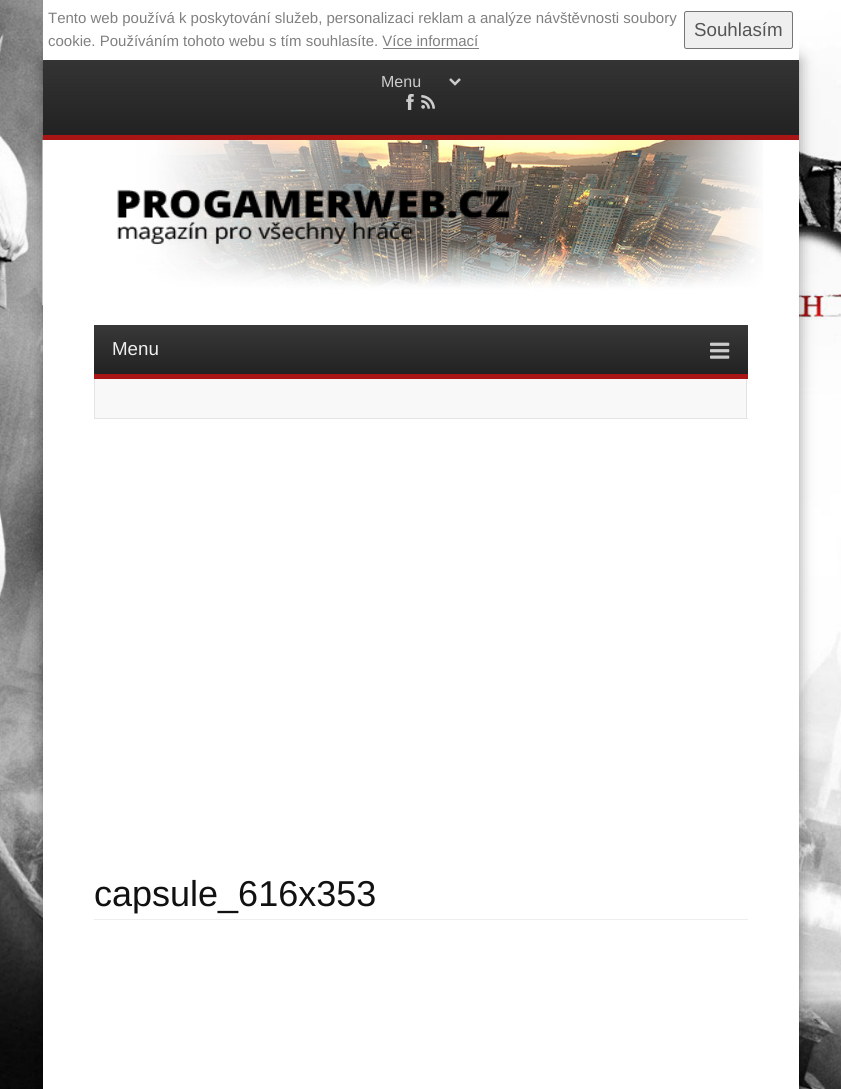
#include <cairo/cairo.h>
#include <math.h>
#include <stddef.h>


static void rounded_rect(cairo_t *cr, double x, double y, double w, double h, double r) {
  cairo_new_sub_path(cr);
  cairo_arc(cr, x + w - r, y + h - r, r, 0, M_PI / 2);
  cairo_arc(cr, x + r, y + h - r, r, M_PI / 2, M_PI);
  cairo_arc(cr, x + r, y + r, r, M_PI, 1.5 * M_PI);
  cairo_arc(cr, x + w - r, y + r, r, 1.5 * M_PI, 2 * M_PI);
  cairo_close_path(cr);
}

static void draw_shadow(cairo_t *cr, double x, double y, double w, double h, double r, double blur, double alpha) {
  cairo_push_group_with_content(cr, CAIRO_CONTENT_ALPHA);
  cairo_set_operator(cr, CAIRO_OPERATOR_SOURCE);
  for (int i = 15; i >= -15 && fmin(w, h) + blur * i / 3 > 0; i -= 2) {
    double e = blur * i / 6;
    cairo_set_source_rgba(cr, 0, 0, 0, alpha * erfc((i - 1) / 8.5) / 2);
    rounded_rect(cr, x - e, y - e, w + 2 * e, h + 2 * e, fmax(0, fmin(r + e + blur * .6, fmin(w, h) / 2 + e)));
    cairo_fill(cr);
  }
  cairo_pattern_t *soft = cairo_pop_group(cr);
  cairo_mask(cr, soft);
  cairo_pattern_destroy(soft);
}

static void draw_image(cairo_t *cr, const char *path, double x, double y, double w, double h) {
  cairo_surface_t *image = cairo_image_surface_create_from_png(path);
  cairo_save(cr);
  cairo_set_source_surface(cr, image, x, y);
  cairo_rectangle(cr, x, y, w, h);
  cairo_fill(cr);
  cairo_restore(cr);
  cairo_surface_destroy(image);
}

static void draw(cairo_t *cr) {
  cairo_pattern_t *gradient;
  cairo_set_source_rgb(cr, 1, 1, 1);
  cairo_paint(cr);
  draw_image(cr, "images/1.png", 0, 0, 841, 1089);
  cairo_set_source_rgb(cr, 0, 0, 0);
  draw_shadow(cr, 43, 60, 756, 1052, 0, 7.5, 0.4);
  cairo_set_source_rgb(cr, 1, 1, 1);
  cairo_rectangle(cr, 43, 0, 756, 60);
  cairo_fill(cr);
  cairo_set_source_rgb(cr, 128 / 255.0, 128 / 255.0, 128 / 255.0);
  cairo_rectangle(cr, 383, 48, 96, 1);
  cairo_fill(cr);
  cairo_set_source_rgb(cr, 239 / 255.0, 239 / 255.0, 239 / 255.0);
  rounded_rect(cr, 684.5, 11.5, 108, 37, 2);
  cairo_fill_preserve(cr);
  cairo_set_source_rgb(cr, 118 / 255.0, 118 / 255.0, 118 / 255.0);
  cairo_set_line_width(cr, 1);
  cairo_stroke(cr);
  cairo_set_source_rgb(cr, 1, 1, 1);
  cairo_rectangle(cr, 43, 140, 756, 949);
  cairo_fill(cr);
  gradient = cairo_pattern_create_linear(421, 60, 421, 135);
  cairo_pattern_add_color_stop_rgba(gradient, 0, 52 / 255.0, 52 / 255.0, 52 / 255.0, 1);
  cairo_pattern_add_color_stop_rgba(gradient, 1, 34 / 255.0, 34 / 255.0, 34 / 255.0, 1);
  cairo_set_source(cr, gradient);
  cairo_pattern_destroy(gradient);
  cairo_rectangle(cr, 43, 60, 756, 75);
  cairo_fill(cr);
  cairo_set_source_rgb(cr, 169 / 255.0, 21 / 255.0, 21 / 255.0);
  cairo_rectangle(cr, 43, 135, 756, 5);
  cairo_fill(cr);
  cairo_new_path(cr);
  cairo_move_to(cr, 450, 79);
  cairo_line_to(cr, 455, 84);
  cairo_line_to(cr, 460, 79);
  cairo_set_source_rgb(cr, 204 / 255.0, 204 / 255.0, 204 / 255.0);
  cairo_set_line_width(cr, 2.5);
  cairo_stroke(cr);
  draw_image(cr, "images/2.png", 406, 94, 8, 16);
  draw_image(cr, "images/3.png", 421, 95, 14, 14);
  draw_image(cr, "images/4.png", 42, 140, 721, 165);
  draw_image(cr, "images/5.png", 117, 189, 393, 56);
  cairo_set_source_rgb(cr, 169 / 255.0, 21 / 255.0, 21 / 255.0);
  cairo_rectangle(cr, 94, 374, 654, 5);
  cairo_fill(cr);
  gradient = cairo_pattern_create_linear(421, 325, 421, 374);
  cairo_pattern_add_color_stop_rgba(gradient, 0, 56 / 255.0, 56 / 255.0, 56 / 255.0, 1);
  cairo_pattern_add_color_stop_rgba(gradient, 1, 34 / 255.0, 34 / 255.0, 34 / 255.0, 1);
  cairo_set_source(cr, gradient);
  cairo_pattern_destroy(gradient);
  cairo_rectangle(cr, 94, 325, 654, 49);
  cairo_fill(cr);
  draw_image(cr, "images/6.png", 710, 342, 20, 17);
  cairo_set_source_rgb(cr, 248 / 255.0, 248 / 255.0, 248 / 255.0);
  cairo_rectangle(cr, 95, 379, 651, 39);
  cairo_fill(cr);
  cairo_set_source_rgb(cr, 228 / 255.0, 228 / 255.0, 228 / 255.0);
  cairo_rectangle(cr, 746, 379, 1, 40);
  cairo_fill(cr);
  cairo_rectangle(cr, 94, 418, 654, 1);
  cairo_fill(cr);
  cairo_rectangle(cr, 94, 379, 1, 40);
  cairo_fill(cr);
  cairo_set_source_rgb(cr, 238 / 255.0, 238 / 255.0, 238 / 255.0);
  cairo_rectangle(cr, 94, 919, 654, 1);
  cairo_fill(cr);
  cairo_select_font_face(cr, "Liberation Sans", CAIRO_FONT_SLANT_NORMAL, CAIRO_FONT_WEIGHT_NORMAL);
  cairo_set_font_size(cr, 15);
  cairo_set_source_rgb(cr, 128 / 255.0, 128 / 255.0, 128 / 255.0);
  cairo_move_to(cr, 48, 23);
  cairo_show_text(cr, "Tento web používá k poskytování služeb, personalizaci reklam a analýze návštěvnosti soubory");
  cairo_move_to(cr, 48, 46);
  cairo_show_text(cr, "cookie. Používáním tohoto webu s tím souhlasíte. Více informací");
  cairo_set_font_size(cr, 18.75);
  cairo_set_source_rgb(cr, 85 / 255.0, 85 / 255.0, 85 / 255.0);
  cairo_move_to(cr, 694, 36);
  cairo_show_text(cr, "Souhlasím");
  cairo_set_font_size(cr, 16);
  cairo_set_source_rgb(cr, 204 / 255.0, 204 / 255.0, 204 / 255.0);
  cairo_move_to(cr, 381, 87);
  cairo_show_text(cr, "Menu");
  cairo_set_font_size(cr, 18.75);
  cairo_set_source_rgb(cr, 238 / 255.0, 238 / 255.0, 238 / 255.0);
  cairo_move_to(cr, 112, 355);
  cairo_show_text(cr, "Menu");
  cairo_set_font_size(cr, 36);
  cairo_set_source_rgb(cr, 17 / 255.0, 17 / 255.0, 17 / 255.0);
  cairo_move_to(cr, 94, 906);
  cairo_show_text(cr, "capsule_616x353");
}

int main(void) {
  cairo_surface_t *surface = cairo_image_surface_create(CAIRO_FORMAT_RGB24, 841, 1089);
  cairo_t *cr = cairo_create(surface);
  cairo_font_options_t *options = cairo_font_options_create();
  cairo_font_options_set_hint_metrics(options, CAIRO_HINT_METRICS_OFF);
  cairo_font_options_set_hint_style(options, CAIRO_HINT_STYLE_NONE);
  cairo_set_font_options(cr, options);
  cairo_set_miter_limit(cr, 4);
  draw(cr);
  cairo_surface_write_to_png(surface, "out.png");
  cairo_font_options_destroy(options);
  cairo_destroy(cr);
  cairo_surface_destroy(surface);
  return 0;
}
